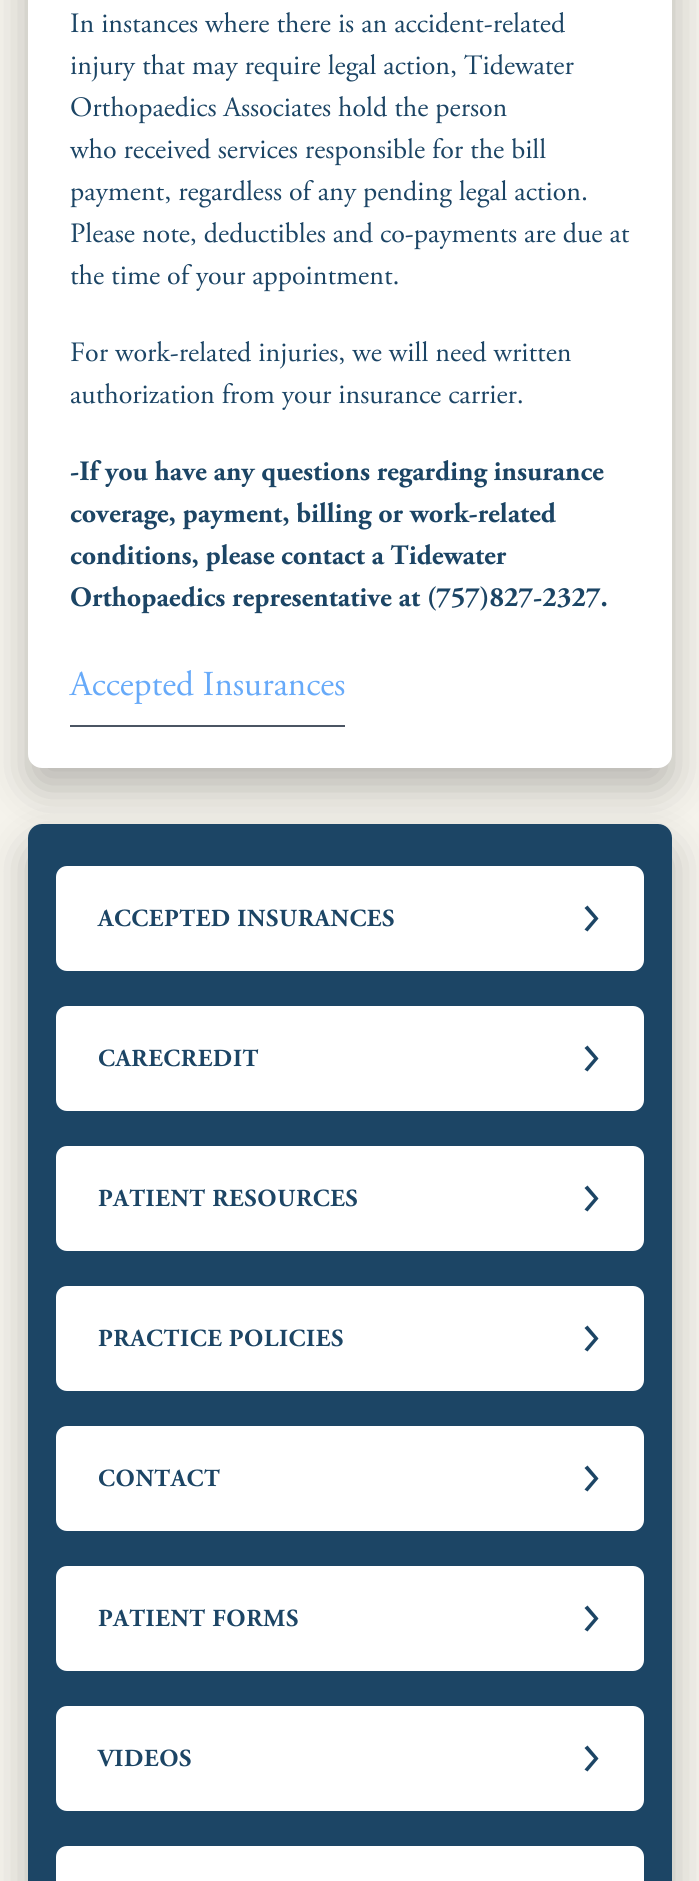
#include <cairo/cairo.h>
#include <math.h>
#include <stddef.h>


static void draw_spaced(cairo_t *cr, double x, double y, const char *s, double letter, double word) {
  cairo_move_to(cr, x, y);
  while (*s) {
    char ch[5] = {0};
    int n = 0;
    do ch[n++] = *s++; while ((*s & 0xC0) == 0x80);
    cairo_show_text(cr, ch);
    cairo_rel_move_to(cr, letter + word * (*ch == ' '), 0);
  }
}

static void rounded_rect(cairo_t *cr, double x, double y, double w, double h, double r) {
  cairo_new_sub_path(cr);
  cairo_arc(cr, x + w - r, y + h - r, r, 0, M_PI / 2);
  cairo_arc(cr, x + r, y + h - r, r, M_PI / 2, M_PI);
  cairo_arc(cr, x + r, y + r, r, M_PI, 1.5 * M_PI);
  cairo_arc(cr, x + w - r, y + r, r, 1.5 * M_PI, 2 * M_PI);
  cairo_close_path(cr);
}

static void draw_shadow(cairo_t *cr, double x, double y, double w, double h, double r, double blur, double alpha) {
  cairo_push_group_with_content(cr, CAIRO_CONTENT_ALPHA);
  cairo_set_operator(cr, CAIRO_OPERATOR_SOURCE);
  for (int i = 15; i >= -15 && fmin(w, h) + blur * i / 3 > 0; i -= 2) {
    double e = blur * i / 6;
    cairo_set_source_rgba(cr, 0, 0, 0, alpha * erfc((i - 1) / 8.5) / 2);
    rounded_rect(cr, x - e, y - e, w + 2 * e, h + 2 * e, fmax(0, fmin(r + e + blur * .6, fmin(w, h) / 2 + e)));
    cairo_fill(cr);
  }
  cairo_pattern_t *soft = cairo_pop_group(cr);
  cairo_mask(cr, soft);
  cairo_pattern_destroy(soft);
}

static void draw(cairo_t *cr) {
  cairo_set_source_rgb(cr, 245 / 255.0, 243 / 255.0, 236 / 255.0);
  cairo_paint(cr);
  cairo_set_source_rgb(cr, 0, 0, 0);
  draw_shadow(cr, 28, -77, 644, 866, 14, 21, 0.25);
  cairo_set_source_rgb(cr, 1, 1, 1);
  rounded_rect(cr, 28, -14, 644, 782, 14);
  cairo_fill(cr);
  cairo_set_source_rgb(cr, 75 / 255.0, 85 / 255.0, 99 / 255.0);
  cairo_rectangle(cr, 70, 725, 275, 2);
  cairo_fill(cr);
  cairo_set_source_rgb(cr, 0, 0, 0);
  draw_shadow(cr, 28, 845, 644, 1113, 14, 21, 0.25);
  cairo_set_source_rgb(cr, 28 / 255.0, 69 / 255.0, 101 / 255.0);
  rounded_rect(cr, 28, 824, 644, 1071, 14);
  cairo_fill(cr);
  cairo_set_source_rgb(cr, 1, 1, 1);
  rounded_rect(cr, 56, 866, 588, 105, 11);
  cairo_fill(cr);
  cairo_set_source_rgb(cr, 28 / 255.0, 69 / 255.0, 101 / 255.0);
  cairo_new_path(cr);
  cairo_move_to(cr, 598.5, 918.5);
  cairo_line_to(cr, 587.5, 905.5);
  cairo_line_to(cr, 584.5, 908);
  cairo_line_to(cr, 594, 918.5);
  cairo_line_to(cr, 584.5, 929.5);
  cairo_line_to(cr, 587.5, 931.5);
  cairo_close_path(cr);
  cairo_fill(cr);
  cairo_set_source_rgb(cr, 1, 1, 1);
  rounded_rect(cr, 56, 1006, 588, 105, 11);
  cairo_fill(cr);
  cairo_set_source_rgb(cr, 28 / 255.0, 69 / 255.0, 101 / 255.0);
  cairo_new_path(cr);
  cairo_move_to(cr, 598.5, 1058.5);
  cairo_line_to(cr, 587.5, 1045.5);
  cairo_line_to(cr, 584.5, 1048);
  cairo_line_to(cr, 594, 1058.5);
  cairo_line_to(cr, 584.5, 1069.5);
  cairo_line_to(cr, 587.5, 1071.5);
  cairo_close_path(cr);
  cairo_fill(cr);
  cairo_set_source_rgb(cr, 1, 1, 1);
  rounded_rect(cr, 56, 1146, 588, 105, 11);
  cairo_fill(cr);
  cairo_set_source_rgb(cr, 28 / 255.0, 69 / 255.0, 101 / 255.0);
  cairo_new_path(cr);
  cairo_move_to(cr, 598.5, 1198.5);
  cairo_line_to(cr, 587.5, 1185.5);
  cairo_line_to(cr, 584.5, 1188);
  cairo_line_to(cr, 594, 1198.5);
  cairo_line_to(cr, 584.5, 1209.5);
  cairo_line_to(cr, 587.5, 1211.5);
  cairo_close_path(cr);
  cairo_fill(cr);
  cairo_set_source_rgb(cr, 1, 1, 1);
  rounded_rect(cr, 56, 1286, 588, 105, 11);
  cairo_fill(cr);
  cairo_set_source_rgb(cr, 28 / 255.0, 69 / 255.0, 101 / 255.0);
  cairo_new_path(cr);
  cairo_move_to(cr, 598.5, 1338.5);
  cairo_line_to(cr, 587.5, 1325.5);
  cairo_line_to(cr, 584.5, 1328);
  cairo_line_to(cr, 594, 1338.5);
  cairo_line_to(cr, 584.5, 1349.5);
  cairo_line_to(cr, 587.5, 1351.5);
  cairo_close_path(cr);
  cairo_fill(cr);
  cairo_set_source_rgb(cr, 1, 1, 1);
  rounded_rect(cr, 56, 1426, 588, 105, 11);
  cairo_fill(cr);
  cairo_set_source_rgb(cr, 28 / 255.0, 69 / 255.0, 101 / 255.0);
  cairo_new_path(cr);
  cairo_move_to(cr, 598.5, 1478.5);
  cairo_line_to(cr, 587.5, 1465.5);
  cairo_line_to(cr, 584.5, 1468);
  cairo_line_to(cr, 594, 1478.5);
  cairo_line_to(cr, 584.5, 1489.5);
  cairo_line_to(cr, 587.5, 1491.5);
  cairo_close_path(cr);
  cairo_fill(cr);
  cairo_set_source_rgb(cr, 1, 1, 1);
  rounded_rect(cr, 56, 1566, 588, 105, 11);
  cairo_fill(cr);
  cairo_set_source_rgb(cr, 28 / 255.0, 69 / 255.0, 101 / 255.0);
  cairo_new_path(cr);
  cairo_move_to(cr, 598.5, 1618.5);
  cairo_line_to(cr, 587.5, 1605.5);
  cairo_line_to(cr, 584.5, 1608);
  cairo_line_to(cr, 594, 1618.5);
  cairo_line_to(cr, 584.5, 1629.5);
  cairo_line_to(cr, 587.5, 1631.5);
  cairo_close_path(cr);
  cairo_fill(cr);
  cairo_set_source_rgb(cr, 1, 1, 1);
  rounded_rect(cr, 56, 1706, 588, 105, 11);
  cairo_fill(cr);
  cairo_set_source_rgb(cr, 28 / 255.0, 69 / 255.0, 101 / 255.0);
  cairo_new_path(cr);
  cairo_move_to(cr, 598.5, 1758.5);
  cairo_line_to(cr, 587.5, 1745.5);
  cairo_line_to(cr, 584.5, 1748);
  cairo_line_to(cr, 594, 1758.5);
  cairo_line_to(cr, 584.5, 1769.5);
  cairo_line_to(cr, 587.5, 1771.5);
  cairo_close_path(cr);
  cairo_fill(cr);
  cairo_set_source_rgb(cr, 1, 1, 1);
  rounded_rect(cr, 56, 1846, 588, 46, 11);
  cairo_fill(cr);
  cairo_select_font_face(cr, "Adobe Garamond", CAIRO_FONT_SLANT_NORMAL, CAIRO_FONT_WEIGHT_NORMAL);
  cairo_set_font_size(cr, 28);
  cairo_set_source_rgb(cr, 28 / 255.0, 69 / 255.0, 101 / 255.0);
  cairo_move_to(cr, 70, 32);
  cairo_show_text(cr, "In instances where there is an accident-related");
  cairo_move_to(cr, 70, 74);
  cairo_show_text(cr, "injury that may require legal action, Tidewater");
  cairo_move_to(cr, 70, 116);
  cairo_show_text(cr, "Orthopaedics Associates hold the person");
  cairo_move_to(cr, 70, 158);
  cairo_show_text(cr, "who received services responsible for the bill");
  cairo_move_to(cr, 70, 200);
  cairo_show_text(cr, "payment, regardless of any pending legal action.");
  cairo_move_to(cr, 70, 242);
  cairo_show_text(cr, "Please note, deductibles and co-payments are due at");
  cairo_move_to(cr, 70, 284);
  cairo_show_text(cr, "the time of your appointment.");
  cairo_move_to(cr, 70, 361);
  cairo_show_text(cr, "For work-related injuries, we will need written");
  cairo_move_to(cr, 70, 403);
  cairo_show_text(cr, "authorization from your insurance carrier.");
  cairo_select_font_face(cr, "Adobe Garamond", CAIRO_FONT_SLANT_NORMAL, CAIRO_FONT_WEIGHT_BOLD);
  cairo_move_to(cr, 70, 480);
  cairo_show_text(cr, "-If you have any questions regarding insurance");
  cairo_move_to(cr, 70, 522);
  cairo_show_text(cr, "coverage, payment, billing or work-related");
  cairo_move_to(cr, 70, 564);
  cairo_show_text(cr, "conditions, please contact a Tidewater");
  cairo_move_to(cr, 70, 606);
  cairo_show_text(cr, "Orthopaedics representative at (757)827-2327.");
  cairo_select_font_face(cr, "Adobe Garamond", CAIRO_FONT_SLANT_NORMAL, CAIRO_FONT_WEIGHT_NORMAL);
  cairo_set_font_size(cr, 35);
  cairo_set_source_rgb(cr, 103 / 255.0, 170 / 255.0, 249 / 255.0);
  cairo_move_to(cr, 70, 695);
  cairo_show_text(cr, "Accepted Insurances");
  cairo_select_font_face(cr, "Adobe Garamond", CAIRO_FONT_SLANT_NORMAL, CAIRO_FONT_WEIGHT_BOLD);
  cairo_set_font_size(cr, 24.5);
  cairo_set_source_rgb(cr, 28 / 255.0, 69 / 255.0, 101 / 255.0);
  draw_spaced(cr, 98, 926, "ACCEPTED INSURANCES", 0.6, 0);
  draw_spaced(cr, 98, 1066, "CARECREDIT", 0.6, 0);
  draw_spaced(cr, 98, 1206, "PATIENT RESOURCES", 0.6, 0);
  draw_spaced(cr, 98, 1346, "PRACTICE POLICIES", 0.6, 0);
  draw_spaced(cr, 98, 1486, "CONTACT", 0.6, 0);
  draw_spaced(cr, 98, 1626, "PATIENT FORMS", 0.6, 0);
  draw_spaced(cr, 98, 1766, "VIDEOS", 0.6, 0);
}

int main(void) {
  cairo_surface_t *surface = cairo_image_surface_create(CAIRO_FORMAT_RGB24, 699, 1881);
  cairo_t *cr = cairo_create(surface);
  cairo_font_options_t *options = cairo_font_options_create();
  cairo_font_options_set_hint_metrics(options, CAIRO_HINT_METRICS_OFF);
  cairo_font_options_set_hint_style(options, CAIRO_HINT_STYLE_NONE);
  cairo_set_font_options(cr, options);
  cairo_set_miter_limit(cr, 4);
  draw(cr);
  cairo_surface_write_to_png(surface, "out.png");
  cairo_font_options_destroy(options);
  cairo_destroy(cr);
  cairo_surface_destroy(surface);
  return 0;
}
